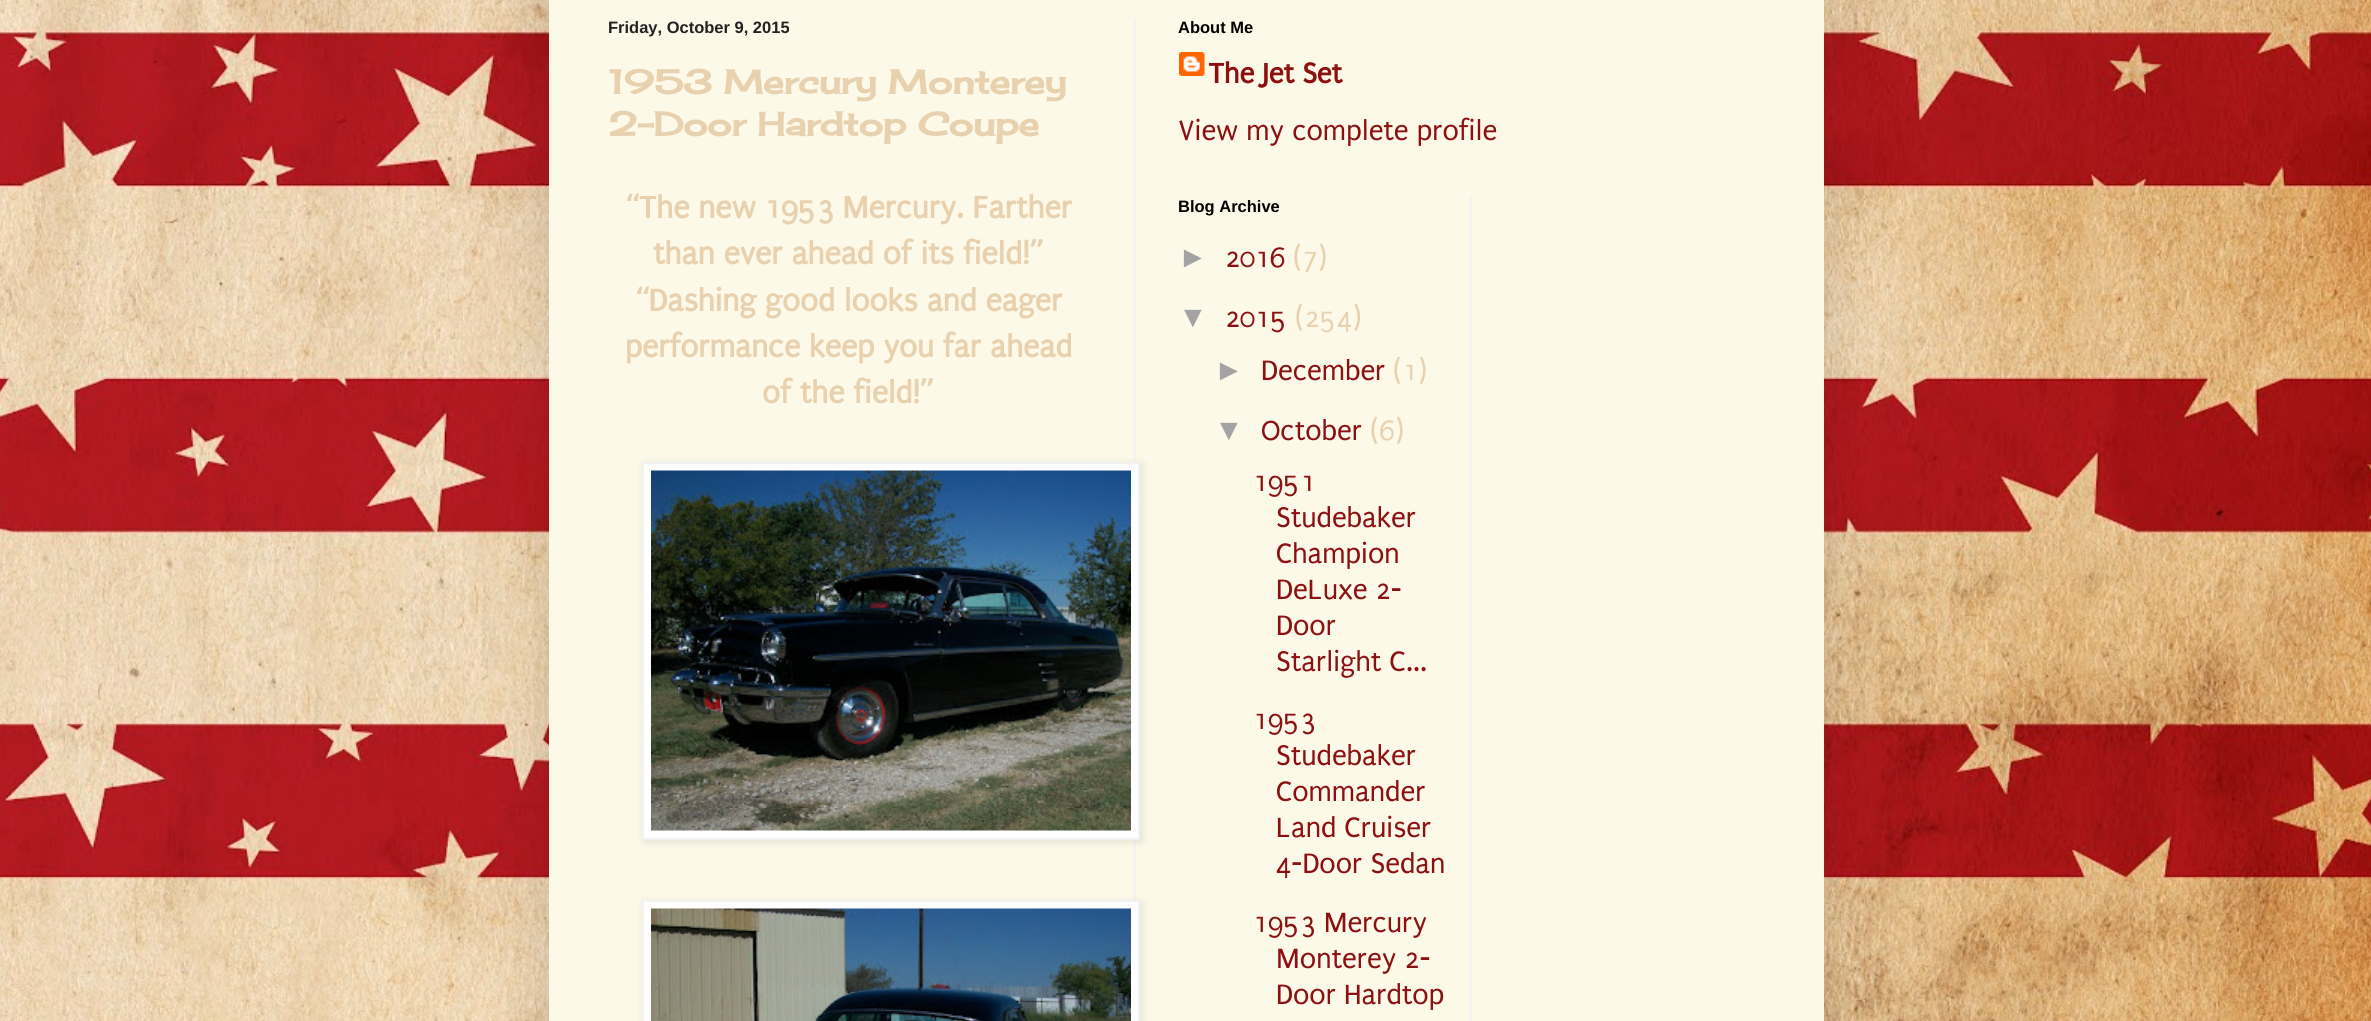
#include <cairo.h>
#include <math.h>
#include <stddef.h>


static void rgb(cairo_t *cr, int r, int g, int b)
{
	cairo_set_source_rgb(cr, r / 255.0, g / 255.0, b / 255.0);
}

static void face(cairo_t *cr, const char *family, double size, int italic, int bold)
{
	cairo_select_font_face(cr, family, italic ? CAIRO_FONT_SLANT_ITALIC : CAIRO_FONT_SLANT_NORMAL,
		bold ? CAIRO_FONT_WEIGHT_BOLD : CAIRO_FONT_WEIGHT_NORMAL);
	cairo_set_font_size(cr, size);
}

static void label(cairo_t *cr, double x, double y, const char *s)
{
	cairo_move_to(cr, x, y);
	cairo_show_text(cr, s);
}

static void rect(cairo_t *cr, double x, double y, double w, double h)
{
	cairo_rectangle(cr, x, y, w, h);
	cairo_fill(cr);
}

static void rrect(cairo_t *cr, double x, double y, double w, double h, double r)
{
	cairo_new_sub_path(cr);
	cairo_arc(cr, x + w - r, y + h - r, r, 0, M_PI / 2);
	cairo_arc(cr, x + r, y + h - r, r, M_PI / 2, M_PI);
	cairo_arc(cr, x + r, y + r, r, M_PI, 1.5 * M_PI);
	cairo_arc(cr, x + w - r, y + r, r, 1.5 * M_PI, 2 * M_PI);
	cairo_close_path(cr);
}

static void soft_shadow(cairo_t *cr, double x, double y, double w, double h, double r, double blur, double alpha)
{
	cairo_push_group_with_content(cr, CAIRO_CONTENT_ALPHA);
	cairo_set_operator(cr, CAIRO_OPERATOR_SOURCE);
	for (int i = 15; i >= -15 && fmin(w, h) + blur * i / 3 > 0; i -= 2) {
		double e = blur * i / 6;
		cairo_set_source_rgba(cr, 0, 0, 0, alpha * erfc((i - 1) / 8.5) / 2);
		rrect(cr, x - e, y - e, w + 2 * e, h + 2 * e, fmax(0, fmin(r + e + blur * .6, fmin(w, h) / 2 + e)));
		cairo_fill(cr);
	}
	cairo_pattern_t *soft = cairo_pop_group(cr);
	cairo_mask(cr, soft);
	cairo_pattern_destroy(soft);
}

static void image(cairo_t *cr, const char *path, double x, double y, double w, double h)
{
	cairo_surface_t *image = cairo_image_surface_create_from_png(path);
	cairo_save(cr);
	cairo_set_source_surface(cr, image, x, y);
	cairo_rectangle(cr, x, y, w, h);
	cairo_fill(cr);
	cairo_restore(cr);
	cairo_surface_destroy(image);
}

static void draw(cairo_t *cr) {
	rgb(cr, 255, 255, 255);
	cairo_paint(cr);
	image(cr, "image0.png", 0, 0, 2371, 1021);
	rgb(cr, 0, 0, 0);
	soft_shadow(cr, 549, -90, 1275, 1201, 0, 30, 0.15);
	rgb(cr, 252, 249, 233);
	rect(cr, 549, 0, 1275, 1021);
	rgb(cr, 242, 242, 242);
	rect(cr, 1134, 18, 2, 882);
	face(cr, "Liberation Sans", 16.5, 0, 1);
	rgb(cr, 34, 34, 34);
	label(cr, 608, 33, "Friday, October 9, 2015");
	face(cr, "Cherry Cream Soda", 33, 0, 1);
	rgb(cr, 232, 209, 175);
	label(cr, 608, 94, "1953 Mercury Monterey");
	label(cr, 608, 136, "2-Door Hardtop Coupe");
	face(cr, "Puritan", 33, 0, 1);
	label(cr, 624, 218, "“The new 1953 Mercury. Farther");
	label(cr, 653, 264, "than ever ahead of its field!”");
	label(cr, 634, 311, "“Dashing good looks and eager");
	label(cr, 625, 357, "performance keep you far ahead");
	label(cr, 762, 403, "of the field!”");
	rgb(cr, 0, 0, 0);
	soft_shadow(cr, 644, 464, 498, 378, 0, 4, 0.1);
	rgb(cr, 255, 255, 255);
	cairo_rectangle(cr, 643, 463, 496, 376);
	cairo_fill_preserve(cr);
	rgb(cr, 242, 242, 242);
	cairo_stroke(cr);
	image(cr, "image1.png", 651, 470, 480, 361);
	rgb(cr, 0, 0, 0);
	soft_shadow(cr, 644, 902, 498, 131, 0, 4, 0.1);
	rgb(cr, 255, 255, 255);
	cairo_rectangle(cr, 643, 901, 496, 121);
	cairo_fill_preserve(cr);
	rgb(cr, 242, 242, 242);
	cairo_stroke(cr);
	image(cr, "image2.png", 651, 908, 480, 113);
	face(cr, "Liberation Sans", 16.5, 0, 1);
	rgb(cr, 0, 0, 0);
	label(cr, 1178, 33, "About Me");
	image(cr, "image3.png", 1179, 52, 26, 24);
	face(cr, "Puritan", 30, 0, 1);
	rgb(cr, 140, 16, 16);
	label(cr, 1208, 83, "The Jet Set");
	face(cr, "Puritan", 30, 0, 0);
	label(cr, 1178, 140, "View my complete profile");
	face(cr, "Liberation Sans", 16.5, 0, 1);
	rgb(cr, 0, 0, 0);
	label(cr, 1178, 212, "Blog Archive");
	face(cr, "Liberation Sans", 30, 0, 0);
	rgb(cr, 163, 163, 163);
	label(cr, 1178, 267, "►");
	face(cr, "Puritan", 30, 0, 0);
	rgb(cr, 140, 16, 16);
	label(cr, 1225, 267, "2016");
	rgb(cr, 232, 209, 175);
	label(cr, 1293, 267, "(7)");
	face(cr, "Liberation Sans", 30, 0, 0);
	rgb(cr, 163, 163, 163);
	label(cr, 1178, 327, "▼");
	face(cr, "Puritan", 30, 0, 0);
	rgb(cr, 140, 16, 16);
	label(cr, 1225, 327, "2015");
	rgb(cr, 232, 209, 175);
	label(cr, 1295, 327, "(254)");
	face(cr, "Liberation Sans", 30, 0, 0);
	rgb(cr, 163, 163, 163);
	label(cr, 1214, 380, "►");
	face(cr, "Puritan", 30, 0, 0);
	rgb(cr, 140, 16, 16);
	label(cr, 1261, 380, "December");
	rgb(cr, 232, 209, 175);
	label(cr, 1393, 380, "(1)");
	face(cr, "Liberation Sans", 30, 0, 0);
	rgb(cr, 163, 163, 163);
	label(cr, 1214, 440, "▼");
	face(cr, "Puritan", 30, 0, 0);
	rgb(cr, 140, 16, 16);
	label(cr, 1261, 440, "October");
	rgb(cr, 232, 209, 175);
	label(cr, 1370, 440, "(6)");
	rgb(cr, 140, 16, 16);
	label(cr, 1253, 491, "1951");
	label(cr, 1276, 527, "Studebaker");
	label(cr, 1276, 563, "Champion");
	label(cr, 1276, 599, "DeLuxe 2-");
	label(cr, 1276, 635, "Door");
	label(cr, 1276, 671, "Starlight C...");
	label(cr, 1253, 729, "1953");
	label(cr, 1276, 765, "Studebaker");
	label(cr, 1276, 801, "Commander");
	label(cr, 1276, 837, "Land Cruiser");
	label(cr, 1276, 873, "4-Door Sedan");
	label(cr, 1253, 932, "1953 Mercury");
	label(cr, 1276, 968, "Monterey 2-");
	label(cr, 1276, 1004, "Door Hardtop");
	rgb(cr, 242, 242, 242);
	rect(cr, 1470, 197, 2, 824);
}

int main(void) {
	cairo_surface_t *surface = cairo_image_surface_create(CAIRO_FORMAT_RGB24, 2371, 1021);
	cairo_t *cr = cairo_create(surface);
	cairo_font_options_t *options = cairo_font_options_create();
	cairo_font_options_set_hint_metrics(options, CAIRO_HINT_METRICS_OFF);
	cairo_font_options_set_hint_style(options, CAIRO_HINT_STYLE_NONE);
	cairo_set_font_options(cr, options);
	cairo_set_miter_limit(cr, 4);
	draw(cr);
	cairo_surface_write_to_png(surface, "render.png");
	cairo_font_options_destroy(options);
	cairo_destroy(cr);
	cairo_surface_destroy(surface);
	return 0;
}
